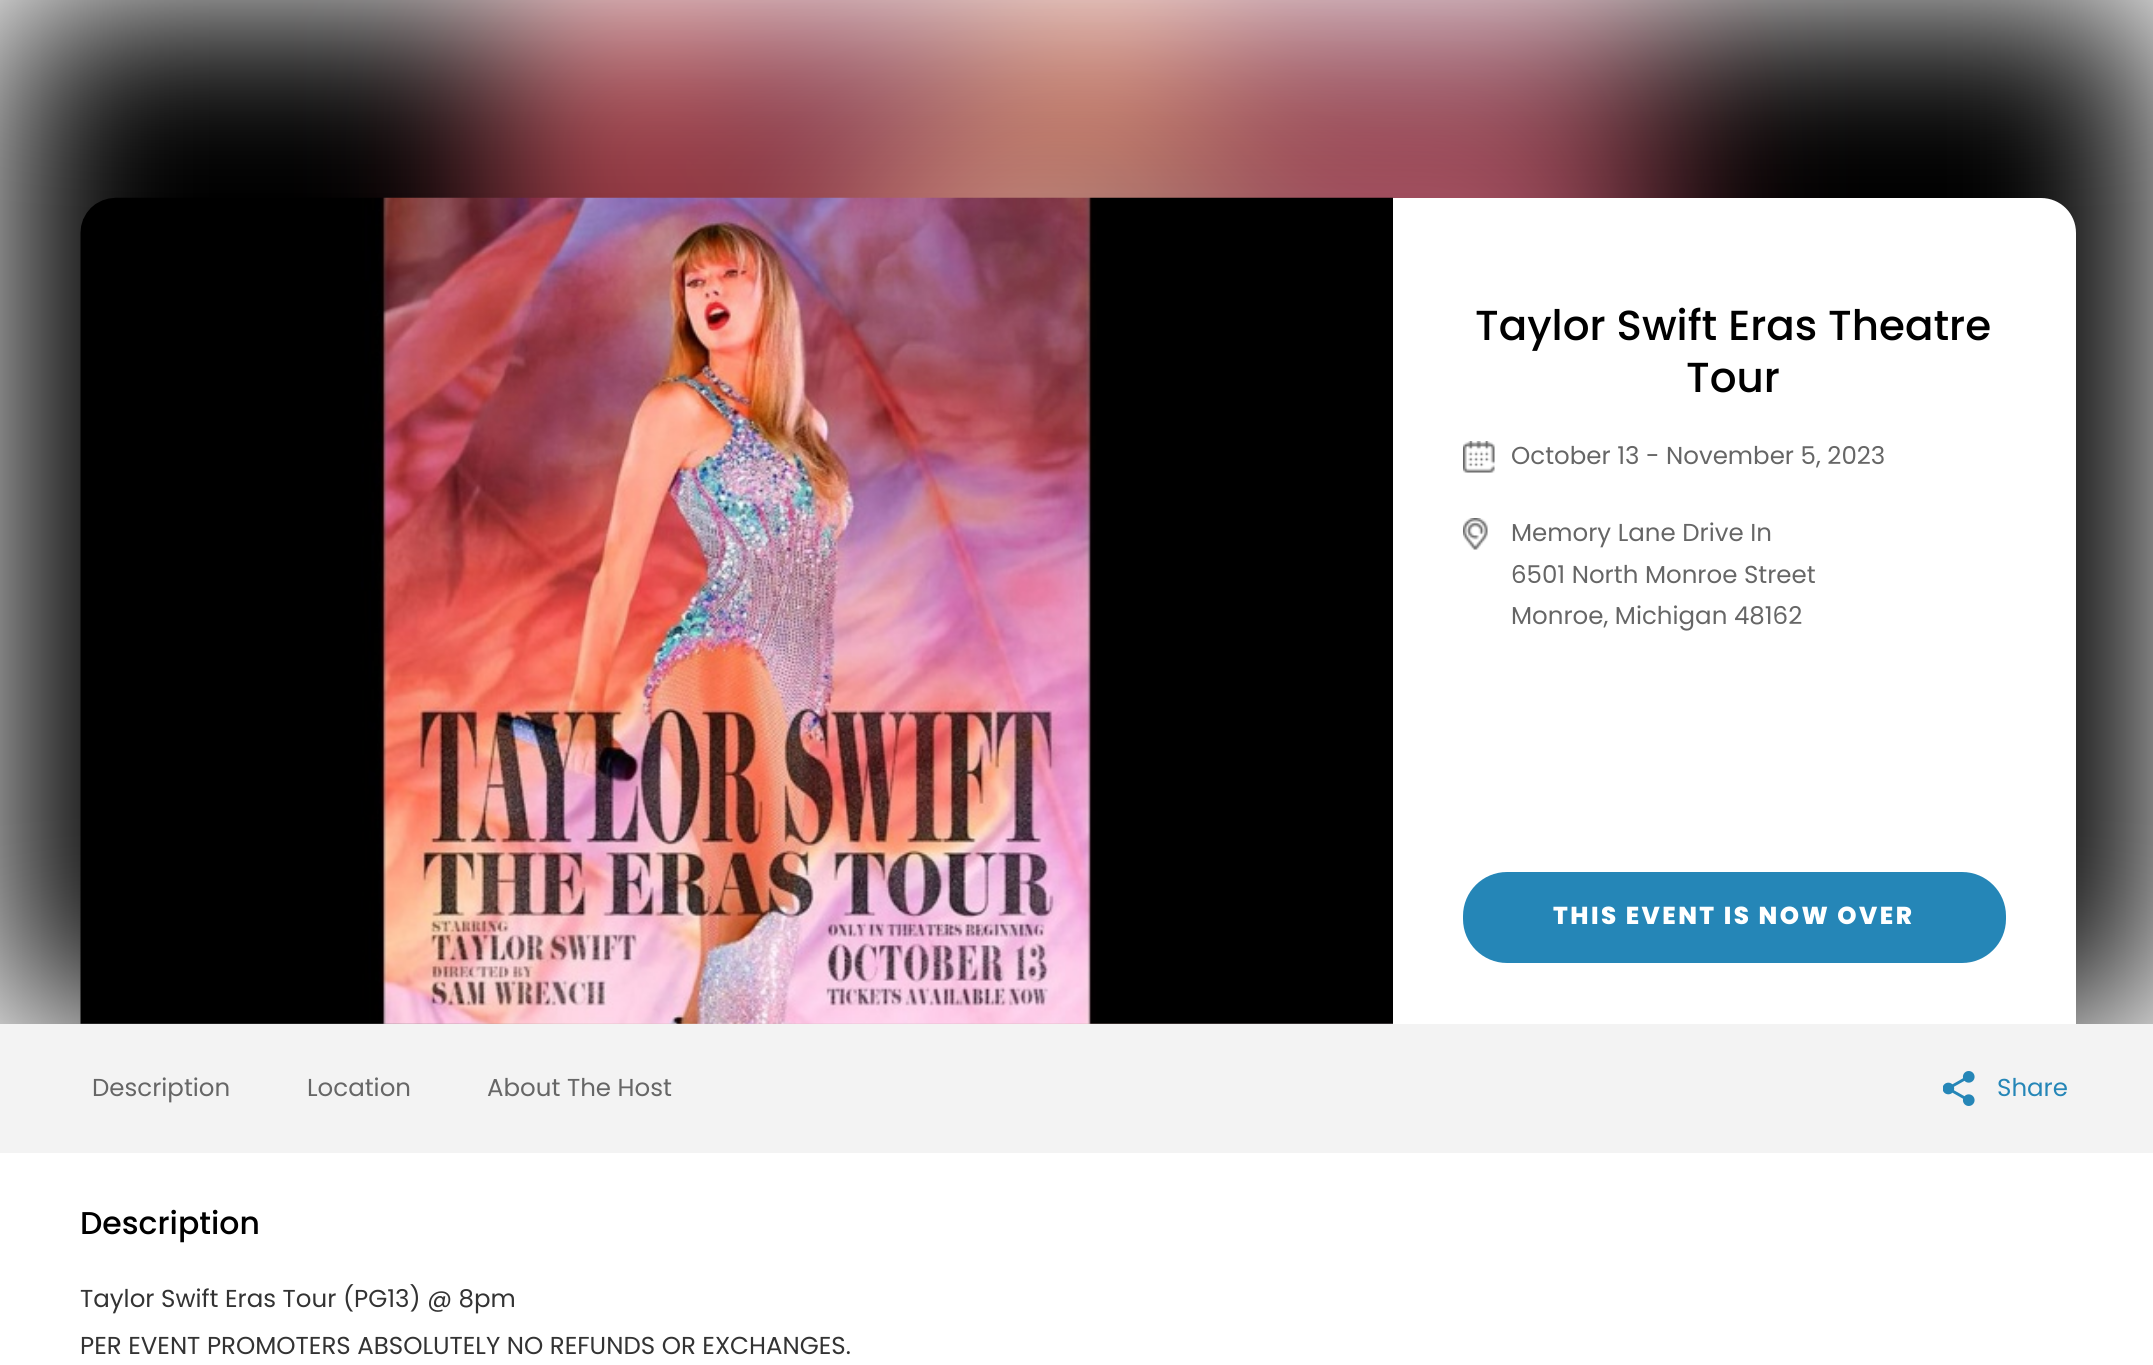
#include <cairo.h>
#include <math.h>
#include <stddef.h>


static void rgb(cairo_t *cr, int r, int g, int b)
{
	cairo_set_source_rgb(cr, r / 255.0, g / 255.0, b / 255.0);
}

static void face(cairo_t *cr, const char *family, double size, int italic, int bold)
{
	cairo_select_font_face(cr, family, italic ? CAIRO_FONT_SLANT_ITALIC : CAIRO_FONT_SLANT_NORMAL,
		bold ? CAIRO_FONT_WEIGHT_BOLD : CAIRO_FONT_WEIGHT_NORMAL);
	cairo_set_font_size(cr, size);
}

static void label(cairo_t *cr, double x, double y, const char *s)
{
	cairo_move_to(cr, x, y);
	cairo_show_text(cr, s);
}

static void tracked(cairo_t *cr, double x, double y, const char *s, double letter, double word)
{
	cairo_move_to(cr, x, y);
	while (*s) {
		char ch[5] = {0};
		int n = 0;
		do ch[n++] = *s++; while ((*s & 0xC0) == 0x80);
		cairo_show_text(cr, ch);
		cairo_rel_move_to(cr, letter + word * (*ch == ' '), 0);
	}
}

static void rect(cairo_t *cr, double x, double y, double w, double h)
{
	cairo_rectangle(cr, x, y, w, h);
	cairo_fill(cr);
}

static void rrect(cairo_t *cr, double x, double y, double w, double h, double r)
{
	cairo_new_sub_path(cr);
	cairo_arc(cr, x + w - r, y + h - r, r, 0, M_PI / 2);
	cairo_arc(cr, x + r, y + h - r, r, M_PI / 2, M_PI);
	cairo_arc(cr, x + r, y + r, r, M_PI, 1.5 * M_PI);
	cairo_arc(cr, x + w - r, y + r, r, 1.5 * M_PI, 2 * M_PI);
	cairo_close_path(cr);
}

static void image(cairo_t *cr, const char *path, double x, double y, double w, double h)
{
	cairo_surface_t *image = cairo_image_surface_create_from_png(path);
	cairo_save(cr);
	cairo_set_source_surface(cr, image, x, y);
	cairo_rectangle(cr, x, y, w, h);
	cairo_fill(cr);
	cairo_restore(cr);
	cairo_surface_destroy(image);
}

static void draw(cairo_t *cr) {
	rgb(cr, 255, 255, 255);
	cairo_paint(cr);
	image(cr, "image0.png", 0, 0, 2153, 1024);
	image(cr, "image1.png", 80, 197, 1313, 827);
	rgb(cr, 255, 255, 255);
	cairo_new_path(cr);
	cairo_move_to(cr, 1393, 198);
	cairo_line_to(cr, 2041, 198);
	cairo_curve_to(cr, 2060.5, 198, 2076, 213.5, 2076, 233);
	cairo_line_to(cr, 2076, 1024);
	cairo_line_to(cr, 1393, 1024);
	cairo_close_path(cr);
	cairo_fill(cr);
	face(cr, "Poppins Medium", 42, 0, 0);
	rgb(cr, 0, 0, 0);
	label(cr, 1475, 340, "Taylor Swift Eras Theatre");
	label(cr, 1686, 392, "Tour");
	image(cr, "image2.png", 1463, 441, 32, 32);
	face(cr, "Poppins", 24.5, 0, 0);
	rgb(cr, 102, 102, 102);
	label(cr, 1511, 464, "October 13 - November 5, 2023");
	image(cr, "image3.png", 1463, 518, 25, 32);
	label(cr, 1511, 541, "Memory Lane Drive In");
	label(cr, 1511, 583, "6501 North Monroe Street");
	label(cr, 1511, 624, "Monroe, Michigan 48162");
	rgb(cr, 37, 134, 183);
	rrect(cr, 1463, 872, 543, 91, 44);
	cairo_fill(cr);
	face(cr, "Poppins ExtraBold", 24.5, 0, 0);
	rgb(cr, 255, 255, 255);
	tracked(cr, 1553, 924, "THIS EVENT IS NOW OVER", 2.45, 0);
	rgb(cr, 243, 243, 243);
	rect(cr, 0, 1024, 2153, 129);
	face(cr, "Poppins", 24.5, 0, 0);
	rgb(cr, 102, 102, 102);
	label(cr, 92, 1096, "Description");
	label(cr, 307, 1096, "Location");
	label(cr, 487, 1096, "About The Host");
	image(cr, "image4.png", 1943, 1071, 32, 35);
	rgb(cr, 37, 134, 183);
	label(cr, 1997, 1096, "Share");
	face(cr, "Poppins Medium", 31.5, 0, 0);
	rgb(cr, 0, 0, 0);
	label(cr, 80, 1234, "Description");
	face(cr, "Poppins", 24.5, 0, 0);
	rgb(cr, 51, 51, 51);
	label(cr, 80, 1307, "Taylor Swift Eras Tour (PG13) @ 8pm");
	label(cr, 80, 1354, "PER EVENT PROMOTERS ABSOLUTELY NO REFUNDS OR EXCHANGES.");
}

int main(void) {
	cairo_surface_t *surface = cairo_image_surface_create(CAIRO_FORMAT_RGB24, 2153, 1365);
	cairo_t *cr = cairo_create(surface);
	cairo_font_options_t *options = cairo_font_options_create();
	cairo_font_options_set_hint_metrics(options, CAIRO_HINT_METRICS_OFF);
	cairo_font_options_set_hint_style(options, CAIRO_HINT_STYLE_NONE);
	cairo_set_font_options(cr, options);
	cairo_set_miter_limit(cr, 4);
	draw(cr);
	cairo_surface_write_to_png(surface, "render.png");
	cairo_font_options_destroy(options);
	cairo_destroy(cr);
	cairo_surface_destroy(surface);
	return 0;
}
